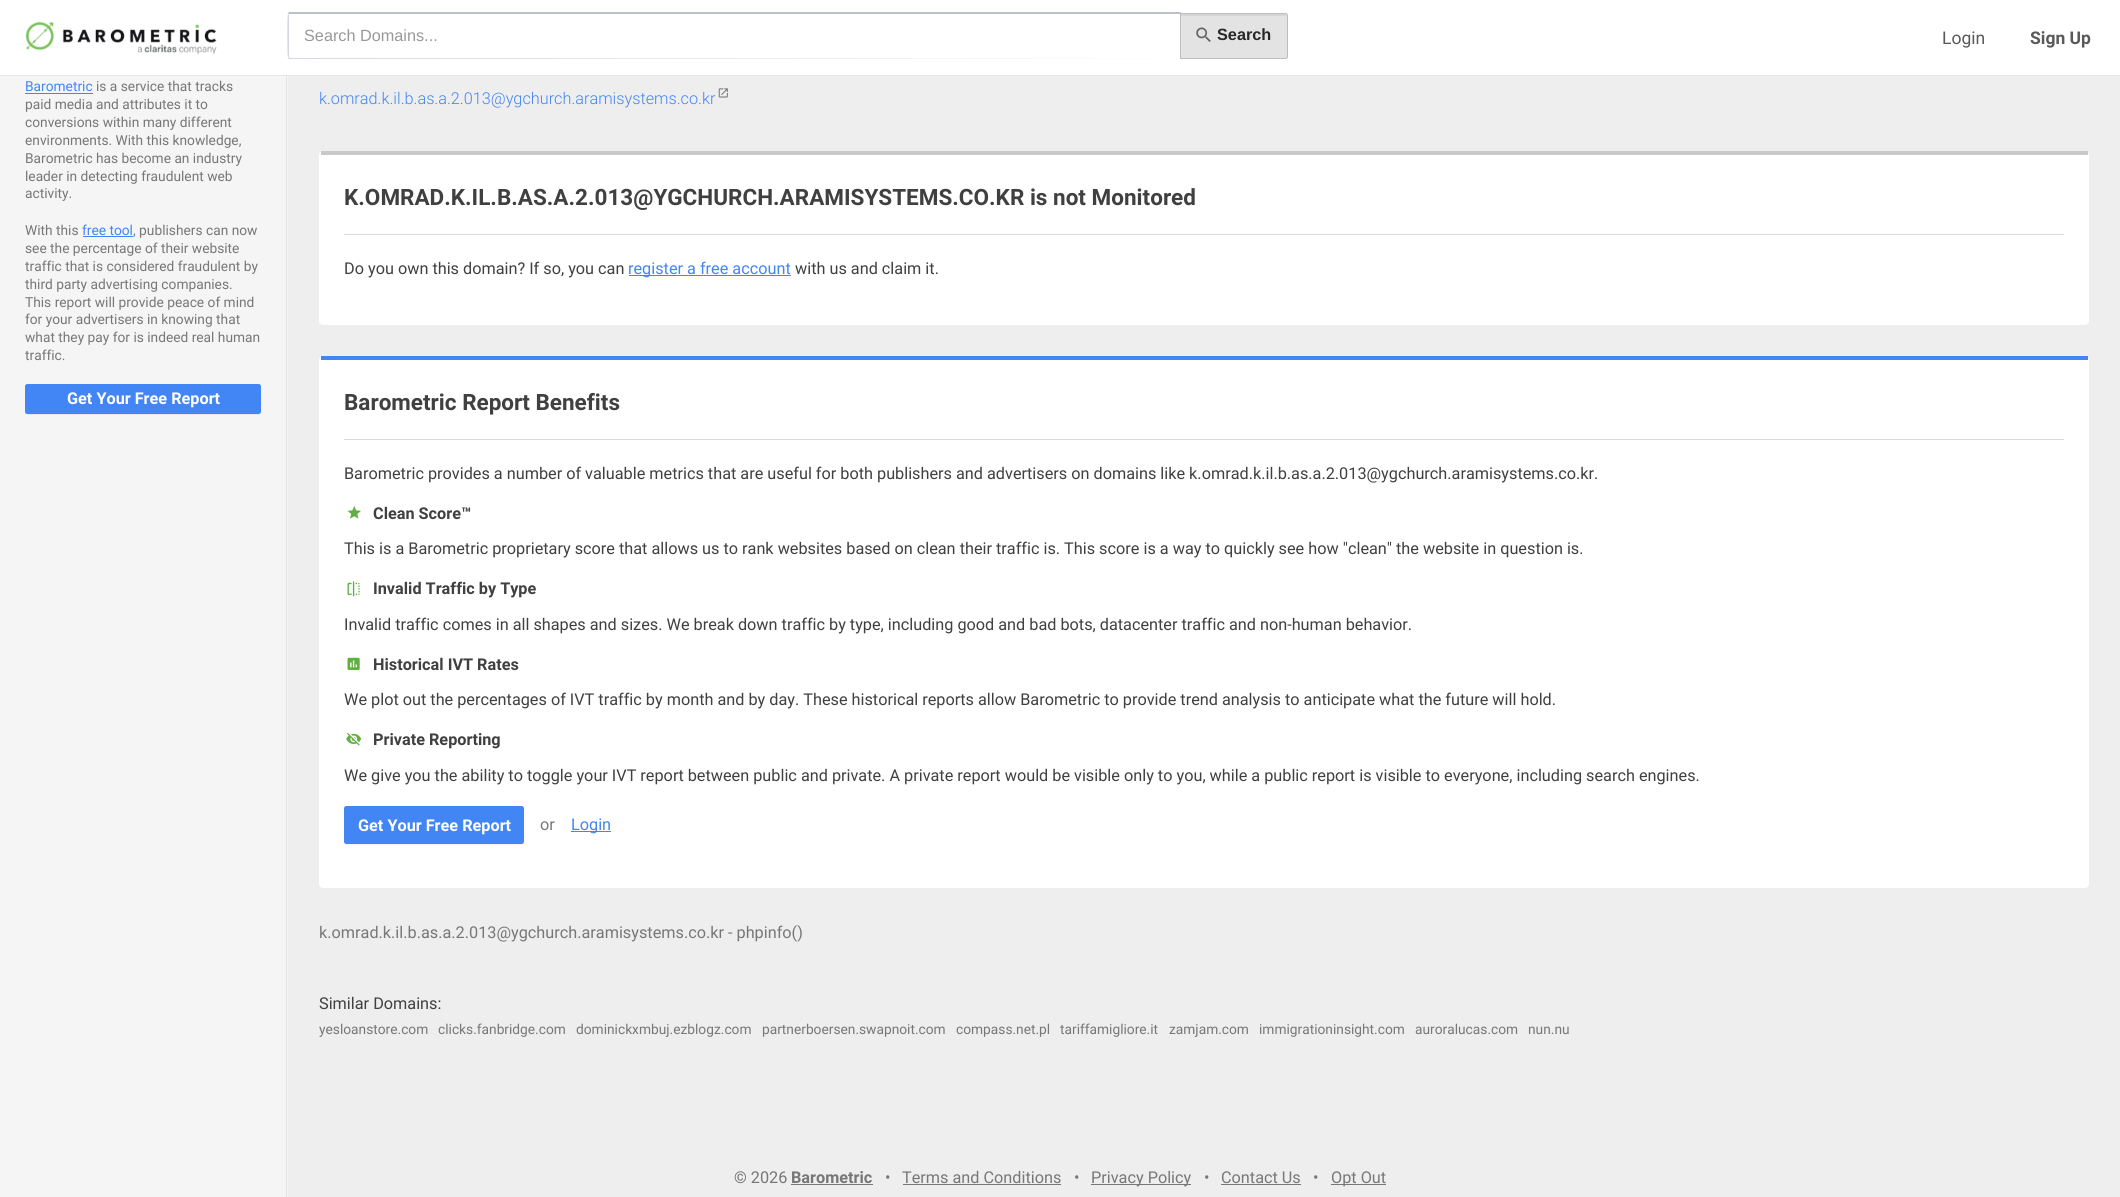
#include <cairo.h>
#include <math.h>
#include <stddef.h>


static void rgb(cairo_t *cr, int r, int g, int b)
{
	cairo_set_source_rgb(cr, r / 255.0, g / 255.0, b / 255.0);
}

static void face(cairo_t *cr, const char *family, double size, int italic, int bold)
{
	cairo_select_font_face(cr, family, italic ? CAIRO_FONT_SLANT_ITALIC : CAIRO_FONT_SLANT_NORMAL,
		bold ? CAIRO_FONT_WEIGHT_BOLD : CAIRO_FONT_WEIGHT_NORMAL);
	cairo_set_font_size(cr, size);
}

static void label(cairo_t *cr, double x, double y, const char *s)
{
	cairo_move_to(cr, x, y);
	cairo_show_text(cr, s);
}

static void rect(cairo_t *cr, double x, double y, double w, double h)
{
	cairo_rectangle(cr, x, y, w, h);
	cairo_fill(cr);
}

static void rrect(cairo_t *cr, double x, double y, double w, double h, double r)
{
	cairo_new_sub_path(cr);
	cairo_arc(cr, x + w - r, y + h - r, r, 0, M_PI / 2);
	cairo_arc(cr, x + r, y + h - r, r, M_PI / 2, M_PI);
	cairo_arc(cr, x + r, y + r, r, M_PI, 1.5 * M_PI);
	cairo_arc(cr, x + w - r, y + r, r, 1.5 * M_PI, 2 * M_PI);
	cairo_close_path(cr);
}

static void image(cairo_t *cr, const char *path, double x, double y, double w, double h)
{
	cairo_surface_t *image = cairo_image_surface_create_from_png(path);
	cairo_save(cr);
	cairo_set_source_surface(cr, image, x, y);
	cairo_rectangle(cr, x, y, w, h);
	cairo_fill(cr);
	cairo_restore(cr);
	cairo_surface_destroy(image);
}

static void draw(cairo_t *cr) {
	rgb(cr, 238, 238, 238);
	cairo_paint(cr);
	rgb(cr, 255, 255, 255);
	rect(cr, 0, 0, 2120, 75);
	rgb(cr, 230, 230, 230);
	rect(cr, 0, 75, 2120, 1);
	image(cr, "image0.png", 25, 21, 192, 34);
	rgb(cr, 189, 192, 199);
	cairo_new_path(cr);
	cairo_move_to(cr, 290, 14);
	cairo_line_to(cr, 289, 14);
	cairo_line_to(cr, 288, 13);
	cairo_line_to(cr, 289, 12);
	cairo_line_to(cr, 1181, 12);
	cairo_line_to(cr, 1180, 14);
	cairo_close_path(cr);
	cairo_fill(cr);
	rgb(cr, 213, 216, 222);
	cairo_new_path(cr);
	cairo_move_to(cr, 289, 59);
	cairo_line_to(cr, 288, 58);
	cairo_line_to(cr, 289, 57);
	cairo_line_to(cr, 290, 58);
	cairo_line_to(cr, 1180, 58);
	cairo_line_to(cr, 1181, 58);
	cairo_close_path(cr);
	cairo_fill(cr);
	cairo_new_path(cr);
	cairo_move_to(cr, 288, 58);
	cairo_curve_to(cr, 287, 56, 287, 15, 288, 13);
	cairo_line_to(cr, 289, 14);
	cairo_line_to(cr, 289, 57);
	cairo_close_path(cr);
	cairo_fill(cr);
	face(cr, "Liberation Sans", 16.25, 0, 0);
	rgb(cr, 153, 153, 153);
	label(cr, 304, 41, "Search Domains...");
	rgb(cr, 227, 227, 227);
	cairo_new_path(cr);
	cairo_move_to(cr, 1180, 13);
	cairo_line_to(cr, 1285.5, 13);
	cairo_curve_to(cr, 1287, 13, 1288, 14, 1288, 15.5);
	cairo_line_to(cr, 1288, 56.5);
	cairo_curve_to(cr, 1288, 58, 1287, 59, 1285.5, 59);
	cairo_line_to(cr, 1180, 59);
	cairo_close_path(cr);
	cairo_fill(cr);
	rgb(cr, 213, 213, 213);
	cairo_new_path(cr);
	cairo_move_to(cr, 1181, 16);
	cairo_line_to(cr, 1285, 16);
	cairo_curve_to(cr, 1286, 16, 1286, 17, 1286, 18);
	cairo_line_to(cr, 1286, 15);
	cairo_curve_to(cr, 1286, 14, 1286, 14, 1285, 14);
	cairo_line_to(cr, 1181, 14);
	cairo_close_path(cr);
	cairo_fill(cr);
	cairo_new_path(cr);
	cairo_move_to(cr, 1180.5, 13.5);
	cairo_line_to(cr, 1285.5, 13.5);
	cairo_curve_to(cr, 1286.5, 13.5, 1287.5, 14.5, 1287.5, 15.5);
	cairo_line_to(cr, 1287.5, 56.5);
	cairo_curve_to(cr, 1287.5, 57.5, 1286.5, 58.5, 1285.5, 58.5);
	cairo_line_to(cr, 1180.5, 58.5);
	cairo_close_path(cr);
	rgb(cr, 189, 189, 189);
	cairo_set_line_width(cr, 1);
	cairo_stroke(cr);
	image(cr, "image1.png", 1196, 27, 15, 15);
	face(cr, "Liberation Sans", 16.25, 0, 1);
	rgb(cr, 39, 39, 39);
	label(cr, 1217, 40, "Search");
	face(cr, "Roboto", 17.5, 0, 0);
	rgb(cr, 90, 90, 90);
	label(cr, 1942, 44, "Login");
	face(cr, "Roboto", 17.5, 0, 1);
	label(cr, 2030, 44, "Sign Up");
	rgb(cr, 245, 245, 245);
	rect(cr, 0, 76, 288, 1121);
	rgb(cr, 227, 227, 227);
	rect(cr, 286, 76, 1, 1121);
	face(cr, "Roboto", 13.75, 0, 0);
	rgb(cr, 66, 133, 244);
	label(cr, 25, 91, "Barometric");
	rect(cr, 25, 93, 68, 1);
	rgb(cr, 119, 119, 119);
	label(cr, 96, 91, "is a service that tracks");
	label(cr, 25, 109, "paid media and attributes it to");
	label(cr, 25, 127, "conversions within many different");
	label(cr, 25, 145, "environments. With this knowledge,");
	label(cr, 25, 163, "Barometric has become an industry");
	label(cr, 25, 181, "leader in detecting fraudulent web");
	label(cr, 25, 198, "activity.");
	label(cr, 25, 235, "With this");
	rgb(cr, 66, 133, 244);
	label(cr, 82, 235, "free tool");
	rect(cr, 83, 236, 50, 1);
	rgb(cr, 119, 119, 119);
	label(cr, 133, 235, ", publishers can now");
	label(cr, 25, 253, "see the percentage of their website");
	label(cr, 25, 271, "traffic that is considered fraudulent by");
	label(cr, 25, 289, "third party advertising companies.");
	label(cr, 25, 307, "This report will provide peace of mind");
	label(cr, 25, 324, "for your advertisers in knowing that");
	label(cr, 25, 342, "what they pay for is indeed real human");
	label(cr, 25, 360, "traffic.");
	rgb(cr, 233, 233, 233);
	cairo_new_path(cr);
	cairo_move_to(cr, 25, 411);
	cairo_line_to(cr, 25, 412);
	cairo_curve_to(cr, 25, 414, 26, 415, 28, 415);
	cairo_line_to(cr, 258, 415);
	cairo_curve_to(cr, 260, 415, 261, 414, 261, 412);
	cairo_curve_to(cr, 261, 413, 260, 414, 259, 414);
	cairo_line_to(cr, 28, 414);
	cairo_curve_to(cr, 26, 414, 25, 413, 25, 411);
	cairo_close_path(cr);
	cairo_fill(cr);
	rgb(cr, 66, 133, 244);
	rrect(cr, 25.5, 384.5, 235, 29, 2);
	cairo_fill_preserve(cr);
	cairo_stroke(cr);
	face(cr, "Roboto", 16.25, 0, 1);
	rgb(cr, 255, 255, 255);
	label(cr, 67, 404, "Get Your Free Report");
	face(cr, "Roboto Light", 16.25, 0, 0);
	rgb(cr, 66, 133, 244);
	label(cr, 319, 104, "k.omrad.k.il.b.as.a.2.013@ygchurch.aramisystems.co.kr");
	image(cr, "image2.png", 718, 88, 10, 10);
	rgb(cr, 255, 255, 255);
	rrect(cr, 319, 151, 1770, 174, 4);
	cairo_fill(cr);
	rgb(cr, 201, 201, 201);
	rect(cr, 321, 151, 1767, 4);
	rgb(cr, 217, 217, 217);
	rect(cr, 344, 234, 1720, 1);
	face(cr, "Roboto", 22.5, 0, 1);
	rgb(cr, 64, 64, 64);
	label(cr, 344, 205, "K.OMRAD.K.IL.B.AS.A.2.013@YGCHURCH.ARAMISYSTEMS.CO.KR is not Monitored");
	face(cr, "Roboto", 16.25, 0, 0);
	label(cr, 344, 274, "Do you own this domain? If so, you can");
	rgb(cr, 66, 133, 244);
	rect(cr, 629, 275, 162, 1);
	label(cr, 628, 274, "register a free account");
	rgb(cr, 64, 64, 64);
	label(cr, 795, 274, "with us and claim it.");
	rgb(cr, 255, 255, 255);
	rrect(cr, 319, 356, 1770, 532, 4);
	cairo_fill(cr);
	rgb(cr, 66, 133, 244);
	rect(cr, 321, 356, 1767, 4);
	rgb(cr, 217, 217, 217);
	rect(cr, 344, 439, 1720, 1);
	face(cr, "Roboto", 22.5, 0, 1);
	rgb(cr, 64, 64, 64);
	label(cr, 344, 410, "Barometric Report Benefits");
	face(cr, "Roboto", 16.25, 0, 0);
	label(cr, 344, 479, "Barometric provides a number of valuable metrics that are useful for both publishers and advertisers on domains like k.omrad.k.il.b.as.a.2.013@ygchurch.aramisystems.co.kr.");
	image(cr, "image3.png", 347, 506, 14, 13);
	face(cr, "Roboto", 16.25, 0, 1);
	label(cr, 373, 519, "Clean Score™");
	face(cr, "Roboto", 16.25, 0, 0);
	label(cr, 344, 554, "This is a Barometric proprietary score that allows us to rank websites based on clean their traffic is. This score is a way to quickly see how \"clean\" the website in question is.");
	image(cr, "image4.png", 347, 581, 13, 16);
	face(cr, "Roboto", 16.25, 0, 1);
	label(cr, 373, 594, "Invalid Traffic by Type");
	face(cr, "Roboto", 16.25, 0, 0);
	label(cr, 344, 630, "Invalid traffic comes in all shapes and sizes. We break down traffic by type, including good and bad bots, datacenter traffic and non-human behavior.");
	image(cr, "image5.png", 347, 657, 13, 13);
	face(cr, "Roboto", 16.25, 0, 1);
	label(cr, 373, 670, "Historical IVT Rates");
	face(cr, "Roboto", 16.25, 0, 0);
	label(cr, 344, 705, "We plot out the percentages of IVT traffic by month and by day. These historical reports allow Barometric to provide trend analysis to anticipate what the future will hold.");
	image(cr, "image6.png", 346, 732, 16, 14);
	face(cr, "Roboto", 16.25, 0, 1);
	label(cr, 373, 745, "Private Reporting");
	face(cr, "Roboto", 16.25, 0, 0);
	label(cr, 344, 781, "We give you the ability to toggle your IVT report between public and private. A private report would be visible only to you, while a public report is visible to everyone, including search engines.");
	rgb(cr, 242, 242, 242);
	cairo_new_path(cr);
	cairo_move_to(cr, 344, 842);
	cairo_curve_to(cr, 344, 844, 345, 845, 346, 845);
	cairo_line_to(cr, 522, 845);
	cairo_curve_to(cr, 523, 845, 524, 844, 524, 842);
	cairo_line_to(cr, 524, 809);
	cairo_line_to(cr, 524, 841);
	cairo_curve_to(cr, 524, 843, 523, 844, 521, 844);
	cairo_line_to(cr, 346, 844);
	cairo_curve_to(cr, 345, 844, 344, 843, 344, 842);
	cairo_close_path(cr);
	cairo_fill(cr);
	rgb(cr, 66, 133, 244);
	rrect(cr, 344.5, 806.5, 179, 37, 2);
	cairo_fill_preserve(cr);
	cairo_stroke(cr);
	face(cr, "Roboto", 16.25, 0, 1);
	rgb(cr, 255, 255, 255);
	label(cr, 358, 831, "Get Your Free Report");
	face(cr, "Roboto", 16.25, 0, 0);
	rgb(cr, 119, 119, 119);
	label(cr, 540, 830, "or");
	rgb(cr, 66, 133, 244);
	rect(cr, 571, 831, 40, 1);
	label(cr, 571, 830, "Login");
	rgb(cr, 119, 119, 119);
	label(cr, 319, 938, "k.omrad.k.il.b.as.a.2.013@ygchurch.aramisystems.co.kr - phpinfo()");
	rgb(cr, 64, 64, 64);
	label(cr, 319, 1009, "Similar Domains:");
	face(cr, "Roboto", 13.75, 0, 0);
	rgb(cr, 119, 119, 119);
	label(cr, 319, 1034, "yesloanstore.com");
	label(cr, 438, 1034, "clicks.fanbridge.com");
	label(cr, 576, 1034, "dominickxmbuj.ezblogz.com");
	label(cr, 762, 1034, "partnerboersen.swapnoit.com");
	label(cr, 956, 1034, "compass.net.pl");
	label(cr, 1060, 1034, "tariffamigliore.it");
	label(cr, 1169, 1034, "zamjam.com");
	label(cr, 1259, 1034, "immigrationinsight.com");
	label(cr, 1415, 1034, "auroralucas.com");
	label(cr, 1528, 1034, "nun.nu");
	face(cr, "Roboto", 16.25, 0, 0);
	label(cr, 734, 1183, "© 2026");
	face(cr, "Roboto", 16.25, 0, 1);
	label(cr, 791, 1183, "Barometric");
	rect(cr, 791, 1184, 82, 1);
	face(cr, "Roboto", 16.25, 0, 0);
	label(cr, 885, 1183, "•");
	label(cr, 902, 1183, "Terms and Conditions");
	rect(cr, 903, 1184, 158, 1);
	label(cr, 1074, 1183, "•");
	rect(cr, 1091, 1184, 100, 1);
	label(cr, 1091, 1183, "Privacy Policy");
	label(cr, 1204, 1183, "•");
	label(cr, 1221, 1183, "Contact Us");
	rect(cr, 1221, 1184, 80, 1);
	label(cr, 1313, 1183, "•");
	rect(cr, 1331, 1184, 55, 1);
	label(cr, 1331, 1183, "Opt Out");
}

int main(void) {
	cairo_surface_t *surface = cairo_image_surface_create(CAIRO_FORMAT_RGB24, 2120, 1197);
	cairo_t *cr = cairo_create(surface);
	cairo_font_options_t *options = cairo_font_options_create();
	cairo_font_options_set_hint_metrics(options, CAIRO_HINT_METRICS_OFF);
	cairo_font_options_set_hint_style(options, CAIRO_HINT_STYLE_NONE);
	cairo_set_font_options(cr, options);
	cairo_set_miter_limit(cr, 4);
	draw(cr);
	cairo_surface_write_to_png(surface, "render.png");
	cairo_font_options_destroy(options);
	cairo_destroy(cr);
	cairo_surface_destroy(surface);
	return 0;
}
